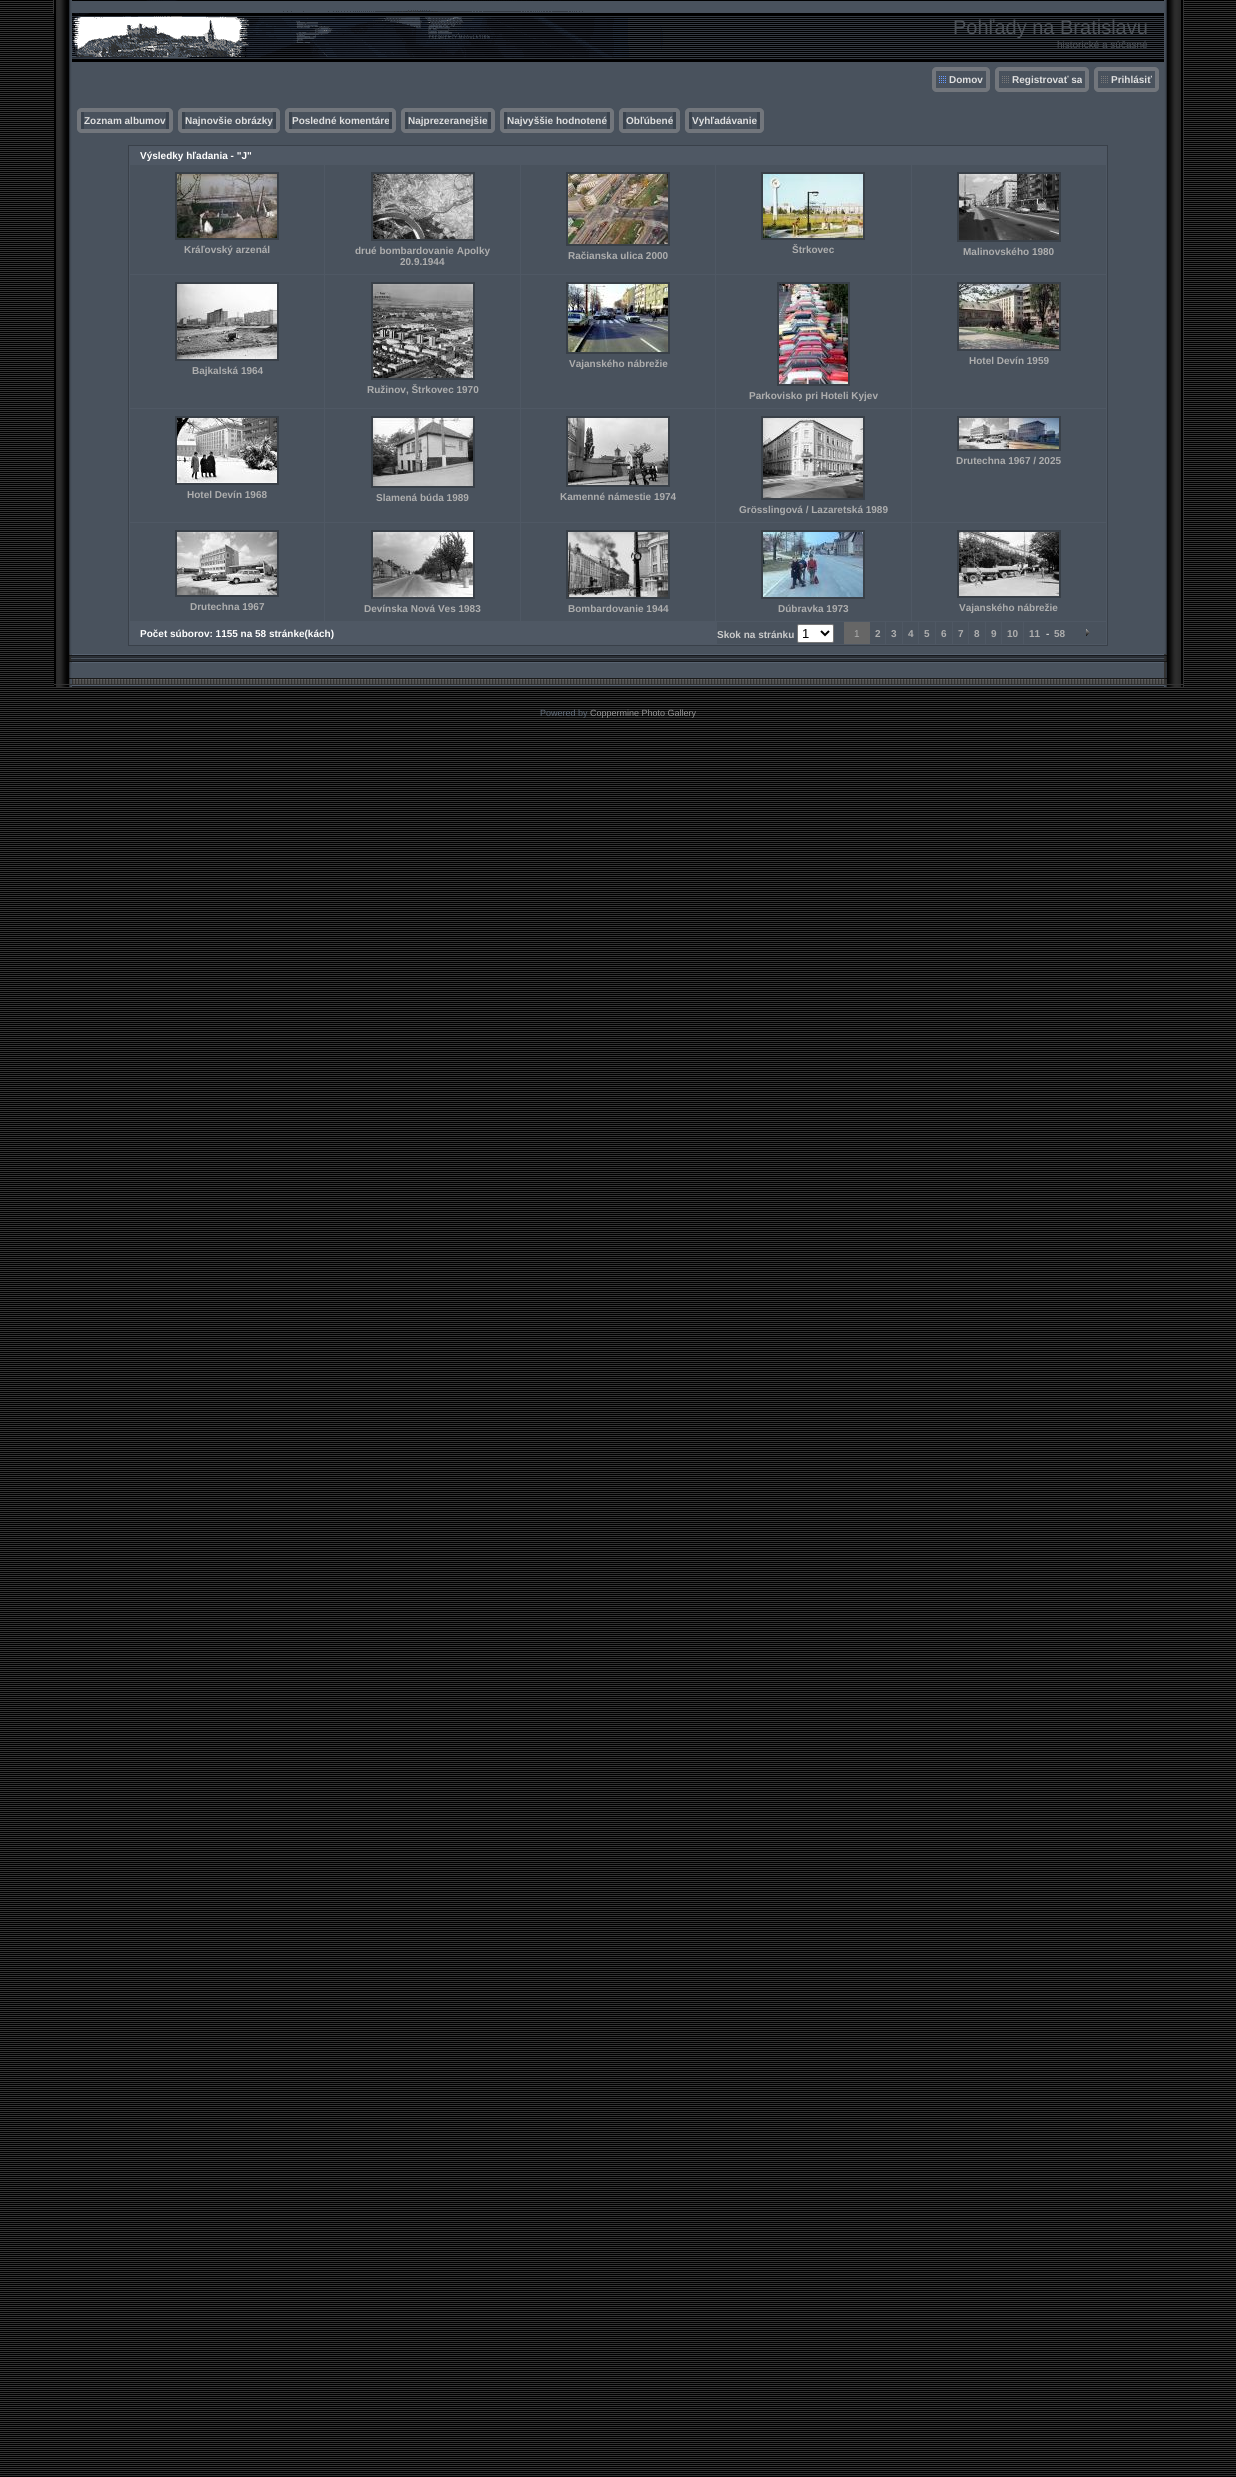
#include <cairo.h>
#include <math.h>
#include <stddef.h>


static void rgb(cairo_t *cr, int r, int g, int b)
{
	cairo_set_source_rgb(cr, r / 255.0, g / 255.0, b / 255.0);
}

static void face(cairo_t *cr, const char *family, double size, int italic, int bold)
{
	cairo_select_font_face(cr, family, italic ? CAIRO_FONT_SLANT_ITALIC : CAIRO_FONT_SLANT_NORMAL,
		bold ? CAIRO_FONT_WEIGHT_BOLD : CAIRO_FONT_WEIGHT_NORMAL);
	cairo_set_font_size(cr, size);
}

static void label(cairo_t *cr, double x, double y, const char *s)
{
	cairo_move_to(cr, x, y);
	cairo_show_text(cr, s);
}

static void rect(cairo_t *cr, double x, double y, double w, double h)
{
	cairo_rectangle(cr, x, y, w, h);
	cairo_fill(cr);
}

static void rrect(cairo_t *cr, double x, double y, double w, double h, double r)
{
	cairo_new_sub_path(cr);
	cairo_arc(cr, x + w - r, y + h - r, r, 0, M_PI / 2);
	cairo_arc(cr, x + r, y + h - r, r, M_PI / 2, M_PI);
	cairo_arc(cr, x + r, y + r, r, M_PI, 1.5 * M_PI);
	cairo_arc(cr, x + w - r, y + r, r, 1.5 * M_PI, 2 * M_PI);
	cairo_close_path(cr);
}

static void image(cairo_t *cr, const char *path, double x, double y, double w, double h)
{
	cairo_surface_t *image = cairo_image_surface_create_from_png(path);
	cairo_save(cr);
	cairo_set_source_surface(cr, image, x, y);
	cairo_rectangle(cr, x, y, w, h);
	cairo_fill(cr);
	cairo_restore(cr);
	cairo_surface_destroy(image);
}

static void draw(cairo_t *cr) {
	rgb(cr, 0, 0, 0);
	cairo_paint(cr);
	image(cr, "image0.png", 0, 1, 1236, 2475);
	rgb(cr, 51, 51, 51);
	rect(cr, 53, 0, 1, 13);
	image(cr, "image1.png", 54, 0, 18, 62);
	image(cr, "image2.png", 72, 1, 1092, 61);
	image(cr, "image3.png", 72, 0, 591, 58);
	face(cr, "Liberation Sans", 20, 0, 0);
	rgb(cr, 76, 81, 87);
	label(cr, 953, 34, "Pohľady na Bratislavu");
	face(cr, "Liberation Sans", 10, 0, 0);
	label(cr, 1057, 48, "historické a súčasné");
	image(cr, "image4.png", 1164, 0, 19, 62);
	rgb(cr, 51, 51, 51);
	rect(cr, 1183, 0, 1, 687);
	image(cr, "image5.png", 54, 62, 18, 592);
	rgb(cr, 73, 82, 93);
	rect(cr, 72, 62, 1092, 592);
	image(cr, "image6.png", 932, 67, 17, 25);
	image(cr, "image7.png", 949, 67, 34, 25);
	face(cr, "Liberation Sans", 10, 0, 1);
	rgb(cr, 223, 223, 223);
	label(cr, 949, 83, "Domov");
	image(cr, "image8.png", 983, 67, 7, 25);
	image(cr, "image9.png", 995, 67, 17, 25);
	image(cr, "image10.png", 1012, 67, 70, 25);
	label(cr, 1012, 83, "Registrovať sa");
	image(cr, "image8.png", 1082, 67, 7, 25);
	image(cr, "image9.png", 1094, 67, 17, 25);
	image(cr, "image11.png", 1111, 67, 41, 25);
	label(cr, 1111, 83, "Prihlásiť");
	image(cr, "image8.png", 1152, 67, 7, 25);
	image(cr, "image12.png", 77, 108, 7, 25);
	image(cr, "image13.png", 84, 108, 82, 25);
	label(cr, 84, 124, "Zoznam albumov");
	image(cr, "image14.png", 166, 108, 7, 25);
	image(cr, "image12.png", 178, 108, 7, 25);
	image(cr, "image15.png", 185, 108, 88, 25);
	label(cr, 185, 124, "Najnovšie obrázky");
	image(cr, "image14.png", 273, 108, 7, 25);
	image(cr, "image12.png", 285, 108, 7, 25);
	image(cr, "image16.png", 292, 108, 97, 25);
	label(cr, 292, 124, "Posledné komentáre");
	image(cr, "image14.png", 389, 108, 7, 25);
	image(cr, "image12.png", 401, 108, 7, 25);
	image(cr, "image17.png", 408, 108, 80, 25);
	label(cr, 408, 124, "Najprezeranejšie");
	image(cr, "image14.png", 488, 108, 7, 25);
	image(cr, "image12.png", 500, 108, 7, 25);
	image(cr, "image18.png", 507, 108, 100, 25);
	label(cr, 507, 124, "Najvyššie hodnotené");
	image(cr, "image14.png", 607, 108, 7, 25);
	image(cr, "image12.png", 619, 108, 7, 25);
	image(cr, "image19.png", 626, 108, 47, 25);
	label(cr, 626, 124, "Obľúbené");
	image(cr, "image14.png", 673, 108, 7, 25);
	image(cr, "image12.png", 685, 108, 7, 25);
	image(cr, "image20.png", 692, 108, 65, 25);
	label(cr, 692, 124, "Vyhľadávanie");
	image(cr, "image14.png", 757, 108, 7, 25);
	rgb(cr, 79, 88, 100);
	cairo_rectangle(cr, 128.5, 145.5, 979, 500);
	cairo_fill_preserve(cr);
	rgb(cr, 57, 64, 73);
	cairo_set_line_width(cr, 1);
	cairo_stroke(cr);
	rgb(cr, 255, 255, 255);
	label(cr, 140, 159, "Výsledky hľadania - \"J\"");
	rgb(cr, 73, 82, 93);
	rect(cr, 130, 165, 194, 109);
	cairo_rectangle(cr, 176, 173, 102, 66);
	rgb(cr, 57, 64, 72);
	cairo_set_line_width(cr, 2);
	cairo_stroke(cr);
	image(cr, "image21.png", 177, 174, 100, 64);
	rgb(cr, 174, 174, 174);
	label(cr, 184, 253, "Kráľovský arzenál");
	rgb(cr, 73, 82, 93);
	rect(cr, 325, 165, 195, 109);
	cairo_rectangle(cr, 372, 173, 102, 67);
	rgb(cr, 57, 64, 72);
	cairo_stroke(cr);
	image(cr, "image22.png", 373, 174, 100, 65);
	rgb(cr, 174, 174, 174);
	label(cr, 355, 254, "drué bombardovanie Apolky");
	label(cr, 400, 265, "20.9.1944");
	rgb(cr, 73, 82, 93);
	rect(cr, 521, 165, 194, 109);
	cairo_rectangle(cr, 567, 173, 102, 72);
	rgb(cr, 57, 64, 72);
	cairo_stroke(cr);
	image(cr, "image23.png", 568, 174, 100, 70);
	rgb(cr, 174, 174, 174);
	label(cr, 568, 259, "Račianska ulica 2000");
	rgb(cr, 73, 82, 93);
	rect(cr, 716, 165, 195, 109);
	cairo_rectangle(cr, 762, 173, 102, 66);
	rgb(cr, 57, 64, 72);
	cairo_stroke(cr);
	image(cr, "image24.png", 763, 174, 100, 64);
	rgb(cr, 174, 174, 174);
	label(cr, 792, 253, "Štrkovec");
	rgb(cr, 73, 82, 93);
	rect(cr, 912, 165, 194, 109);
	cairo_rectangle(cr, 958, 173, 102, 68);
	rgb(cr, 57, 64, 72);
	cairo_stroke(cr);
	image(cr, "image25.png", 959, 174, 100, 66);
	rgb(cr, 174, 174, 174);
	label(cr, 963, 255, "Malinovského 1980");
	rgb(cr, 73, 82, 93);
	rect(cr, 521, 275, 194, 133);
	cairo_rectangle(cr, 567, 283, 102, 70);
	rgb(cr, 57, 64, 72);
	cairo_stroke(cr);
	image(cr, "image26.png", 568, 284, 100, 68);
	rgb(cr, 174, 174, 174);
	label(cr, 569, 367, "Vajanského nábrežie");
	rgb(cr, 73, 82, 93);
	rect(cr, 912, 275, 194, 133);
	cairo_rectangle(cr, 958, 283, 102, 67);
	rgb(cr, 57, 64, 72);
	cairo_stroke(cr);
	image(cr, "image27.png", 959, 284, 100, 65);
	rgb(cr, 174, 174, 174);
	label(cr, 969, 364, "Hotel Devín 1959");
	rgb(cr, 73, 82, 93);
	rect(cr, 130, 275, 194, 133);
	cairo_rectangle(cr, 176, 283, 102, 77);
	rgb(cr, 57, 64, 72);
	cairo_stroke(cr);
	image(cr, "image28.png", 177, 284, 100, 75);
	rgb(cr, 174, 174, 174);
	label(cr, 192, 374, "Bajkalská 1964");
	rgb(cr, 73, 82, 93);
	rect(cr, 325, 275, 195, 133);
	cairo_rectangle(cr, 372, 283, 102, 96);
	rgb(cr, 57, 64, 72);
	cairo_stroke(cr);
	image(cr, "image29.png", 373, 284, 100, 94);
	rgb(cr, 174, 174, 174);
	label(cr, 367, 393, "Ružinov, Štrkovec 1970");
	rgb(cr, 73, 82, 93);
	rect(cr, 716, 275, 195, 133);
	cairo_rectangle(cr, 778, 283, 71, 102);
	rgb(cr, 57, 64, 72);
	cairo_stroke(cr);
	image(cr, "image30.png", 779, 284, 69, 100);
	rgb(cr, 174, 174, 174);
	label(cr, 749, 399, "Parkovisko pri Hoteli Kyjev");
	rgb(cr, 73, 82, 93);
	rect(cr, 912, 409, 194, 113);
	cairo_rectangle(cr, 958, 417, 102, 33);
	rgb(cr, 57, 64, 72);
	cairo_stroke(cr);
	image(cr, "image31.png", 959, 418, 100, 31);
	rgb(cr, 174, 174, 174);
	label(cr, 956, 464, "Drutechna 1967 / 2025");
	rgb(cr, 73, 82, 93);
	rect(cr, 130, 409, 194, 113);
	cairo_rectangle(cr, 176, 417, 102, 67);
	rgb(cr, 57, 64, 72);
	cairo_stroke(cr);
	image(cr, "image32.png", 177, 418, 100, 65);
	rgb(cr, 174, 174, 174);
	label(cr, 187, 498, "Hotel Devín 1968");
	rgb(cr, 73, 82, 93);
	rect(cr, 325, 409, 195, 113);
	cairo_rectangle(cr, 372, 417, 102, 70);
	rgb(cr, 57, 64, 72);
	cairo_stroke(cr);
	image(cr, "image33.png", 373, 418, 100, 68);
	rgb(cr, 174, 174, 174);
	label(cr, 376, 501, "Slamená búda 1989");
	rgb(cr, 73, 82, 93);
	rect(cr, 521, 409, 194, 113);
	cairo_rectangle(cr, 567, 417, 102, 69);
	rgb(cr, 57, 64, 72);
	cairo_stroke(cr);
	image(cr, "image34.png", 568, 418, 100, 67);
	rgb(cr, 174, 174, 174);
	label(cr, 560, 500, "Kamenné námestie 1974");
	rgb(cr, 73, 82, 93);
	rect(cr, 716, 409, 195, 113);
	cairo_rectangle(cr, 762, 417, 102, 82);
	rgb(cr, 57, 64, 72);
	cairo_stroke(cr);
	image(cr, "image35.png", 763, 418, 100, 80);
	rgb(cr, 174, 174, 174);
	label(cr, 739, 513, "Grösslingová / Lazaretská 1989");
	rgb(cr, 73, 82, 93);
	rect(cr, 130, 523, 194, 98);
	cairo_rectangle(cr, 176, 531, 102, 65);
	rgb(cr, 57, 64, 72);
	cairo_stroke(cr);
	image(cr, "image36.png", 177, 532, 100, 63);
	rgb(cr, 174, 174, 174);
	label(cr, 190, 610, "Drutechna 1967");
	rgb(cr, 73, 82, 93);
	rect(cr, 325, 523, 195, 98);
	cairo_rectangle(cr, 372, 531, 102, 67);
	rgb(cr, 57, 64, 72);
	cairo_stroke(cr);
	image(cr, "image37.png", 373, 532, 100, 65);
	rgb(cr, 174, 174, 174);
	label(cr, 364, 612, "Devínska Nová Ves 1983");
	rgb(cr, 73, 82, 93);
	rect(cr, 521, 523, 194, 98);
	cairo_rectangle(cr, 567, 531, 102, 67);
	rgb(cr, 57, 64, 72);
	cairo_stroke(cr);
	image(cr, "image38.png", 568, 532, 100, 65);
	rgb(cr, 174, 174, 174);
	label(cr, 568, 612, "Bombardovanie 1944");
	rgb(cr, 73, 82, 93);
	rect(cr, 716, 523, 195, 98);
	cairo_rectangle(cr, 762, 531, 102, 67);
	rgb(cr, 57, 64, 72);
	cairo_stroke(cr);
	image(cr, "image39.png", 763, 532, 100, 65);
	rgb(cr, 174, 174, 174);
	label(cr, 778, 612, "Dúbravka 1973");
	rgb(cr, 73, 82, 93);
	rect(cr, 912, 523, 194, 98);
	cairo_rectangle(cr, 958, 531, 102, 66);
	rgb(cr, 57, 64, 72);
	cairo_stroke(cr);
	image(cr, "image40.png", 959, 532, 100, 64);
	rgb(cr, 174, 174, 174);
	label(cr, 959, 611, "Vajanského nábrežie");
	rgb(cr, 255, 255, 255);
	label(cr, 140, 637, "Počet súborov: 1155 na 58 stránke(kách)");
	rgb(cr, 73, 82, 93);
	rect(cr, 717, 622, 127, 22);
	rgb(cr, 204, 204, 204);
	label(cr, 717, 638, "Skok na stránku");
	rgb(cr, 255, 255, 255);
	rrect(cr, 797.5, 624.5, 36, 18, 1.5);
	cairo_fill_preserve(cr);
	rgb(cr, 118, 118, 118);
	cairo_set_line_width(cr, 1);
	cairo_stroke(cr);
	cairo_new_path(cr);
	cairo_move_to(cr, 821, 631);
	cairo_line_to(cr, 825, 635);
	cairo_line_to(cr, 829, 631);
	rgb(cr, 0, 0, 0);
	cairo_set_line_width(cr, 2);
	cairo_stroke(cr);
	face(cr, "Liberation Sans", 13, 0, 0);
	label(cr, 802, 638, "1");
	rgb(cr, 102, 102, 102);
	rect(cr, 844, 622, 26, 22);
	face(cr, "Liberation Sans", 10, 0, 0);
	rgb(cr, 174, 174, 174);
	label(cr, 854, 637, "1");
	rgb(cr, 73, 82, 93);
	rect(cr, 870, 622, 15, 22);
	face(cr, "Liberation Sans", 10, 0, 1);
	rgb(cr, 174, 174, 174);
	label(cr, 875, 637, "2");
	rgb(cr, 73, 82, 93);
	rect(cr, 886, 622, 16, 22);
	rgb(cr, 174, 174, 174);
	label(cr, 891, 637, "3");
	rgb(cr, 73, 82, 93);
	rect(cr, 903, 622, 15, 22);
	rgb(cr, 174, 174, 174);
	label(cr, 908, 637, "4");
	rgb(cr, 73, 82, 93);
	rect(cr, 919, 622, 16, 22);
	rgb(cr, 174, 174, 174);
	label(cr, 924, 637, "5");
	rgb(cr, 73, 82, 93);
	rect(cr, 936, 622, 16, 22);
	rgb(cr, 174, 174, 174);
	label(cr, 941, 637, "6");
	rgb(cr, 73, 82, 93);
	rect(cr, 953, 622, 15, 22);
	rgb(cr, 174, 174, 174);
	label(cr, 958, 637, "7");
	rgb(cr, 73, 82, 93);
	rect(cr, 969, 622, 16, 22);
	rgb(cr, 174, 174, 174);
	label(cr, 974, 637, "8");
	rgb(cr, 73, 82, 93);
	rect(cr, 986, 622, 15, 22);
	rgb(cr, 174, 174, 174);
	label(cr, 991, 637, "9");
	rgb(cr, 73, 82, 93);
	rect(cr, 1002, 622, 21, 22);
	rgb(cr, 174, 174, 174);
	label(cr, 1007, 637, "10");
	rgb(cr, 73, 82, 93);
	rect(cr, 1024, 622, 82, 22);
	rgb(cr, 174, 174, 174);
	label(cr, 1029, 637, "11");
	rgb(cr, 204, 204, 204);
	label(cr, 1046, 637, "-");
	rgb(cr, 174, 174, 174);
	label(cr, 1054, 637, "58");
	image(cr, "image41.png", 1086, 629, 4, 7);
	image(cr, "image42.png", 1164, 62, 19, 592);
	image(cr, "image43.png", 54, 685, 18, 2);
	image(cr, "image44.png", 54, 654, 18, 31);
	image(cr, "image45.png", 72, 654, 1092, 33);
	image(cr, "image46.png", 1164, 685, 19, 2);
	image(cr, "image47.png", 1164, 654, 19, 31);
	face(cr, "Liberation Sans", 9, 0, 0);
	rgb(cr, 97, 108, 122);
	label(cr, 540, 716, "Powered by");
	rgb(cr, 148, 148, 148);
	label(cr, 590, 716, "Coppermine Photo Gallery");
}

int main(void) {
	cairo_surface_t *surface = cairo_image_surface_create(CAIRO_FORMAT_RGB24, 1236, 2477);
	cairo_t *cr = cairo_create(surface);
	cairo_font_options_t *options = cairo_font_options_create();
	cairo_font_options_set_hint_metrics(options, CAIRO_HINT_METRICS_OFF);
	cairo_font_options_set_hint_style(options, CAIRO_HINT_STYLE_NONE);
	cairo_set_font_options(cr, options);
	cairo_set_miter_limit(cr, 4);
	draw(cr);
	cairo_surface_write_to_png(surface, "render.png");
	cairo_font_options_destroy(options);
	cairo_destroy(cr);
	cairo_surface_destroy(surface);
	return 0;
}
